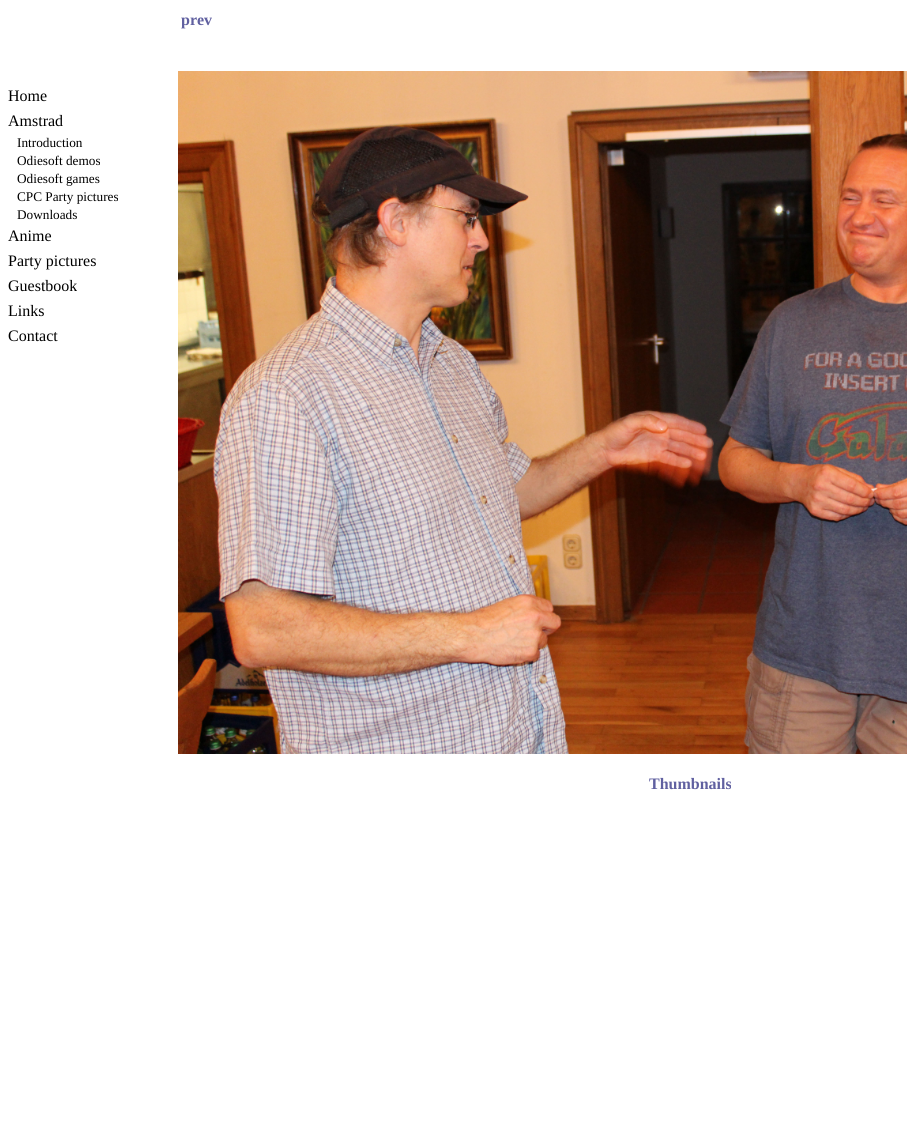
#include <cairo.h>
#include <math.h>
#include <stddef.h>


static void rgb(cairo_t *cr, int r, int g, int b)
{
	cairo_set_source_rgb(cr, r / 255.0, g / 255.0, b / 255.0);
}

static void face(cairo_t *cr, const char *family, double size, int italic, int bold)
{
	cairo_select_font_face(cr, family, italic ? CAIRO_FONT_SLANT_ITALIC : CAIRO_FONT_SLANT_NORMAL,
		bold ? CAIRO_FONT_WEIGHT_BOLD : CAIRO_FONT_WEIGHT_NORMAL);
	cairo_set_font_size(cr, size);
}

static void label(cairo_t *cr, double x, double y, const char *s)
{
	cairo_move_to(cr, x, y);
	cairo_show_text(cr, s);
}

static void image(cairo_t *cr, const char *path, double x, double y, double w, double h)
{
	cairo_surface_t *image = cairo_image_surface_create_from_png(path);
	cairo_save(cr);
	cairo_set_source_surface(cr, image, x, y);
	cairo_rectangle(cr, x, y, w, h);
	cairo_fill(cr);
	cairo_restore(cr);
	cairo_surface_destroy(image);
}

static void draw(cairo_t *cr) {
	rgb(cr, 255, 255, 255);
	cairo_paint(cr);
	face(cr, "Liberation Serif", 16, 0, 0);
	rgb(cr, 0, 0, 0);
	label(cr, 8, 101, "Home");
	label(cr, 8, 126, "Amstrad");
	face(cr, "Liberation Serif", 13.25, 0, 0);
	label(cr, 17, 147, "Introduction");
	label(cr, 17, 165, "Odiesoft demos");
	label(cr, 17, 183, "Odiesoft games");
	label(cr, 17, 201, "CPC Party pictures");
	label(cr, 17, 219, "Downloads");
	face(cr, "Liberation Serif", 16, 0, 0);
	label(cr, 8, 241, "Anime");
	label(cr, 8, 266, "Party pictures");
	label(cr, 8, 291, "Guestbook");
	label(cr, 8, 316, "Links");
	label(cr, 8, 341, "Contact");
	face(cr, "Liberation Serif", 16, 0, 1);
	rgb(cr, 96, 96, 160);
	label(cr, 181, 25, "prev");
	image(cr, "image0.png", 178, 71, 729, 683);
	label(cr, 649, 789, "Thumbnails");
}

int main(void) {
	cairo_surface_t *surface = cairo_image_surface_create(CAIRO_FORMAT_RGB24, 907, 1132);
	cairo_t *cr = cairo_create(surface);
	cairo_font_options_t *options = cairo_font_options_create();
	cairo_font_options_set_hint_metrics(options, CAIRO_HINT_METRICS_OFF);
	cairo_font_options_set_hint_style(options, CAIRO_HINT_STYLE_NONE);
	cairo_set_font_options(cr, options);
	cairo_set_miter_limit(cr, 4);
	draw(cr);
	cairo_surface_write_to_png(surface, "render.png");
	cairo_font_options_destroy(options);
	cairo_destroy(cr);
	cairo_surface_destroy(surface);
	return 0;
}
